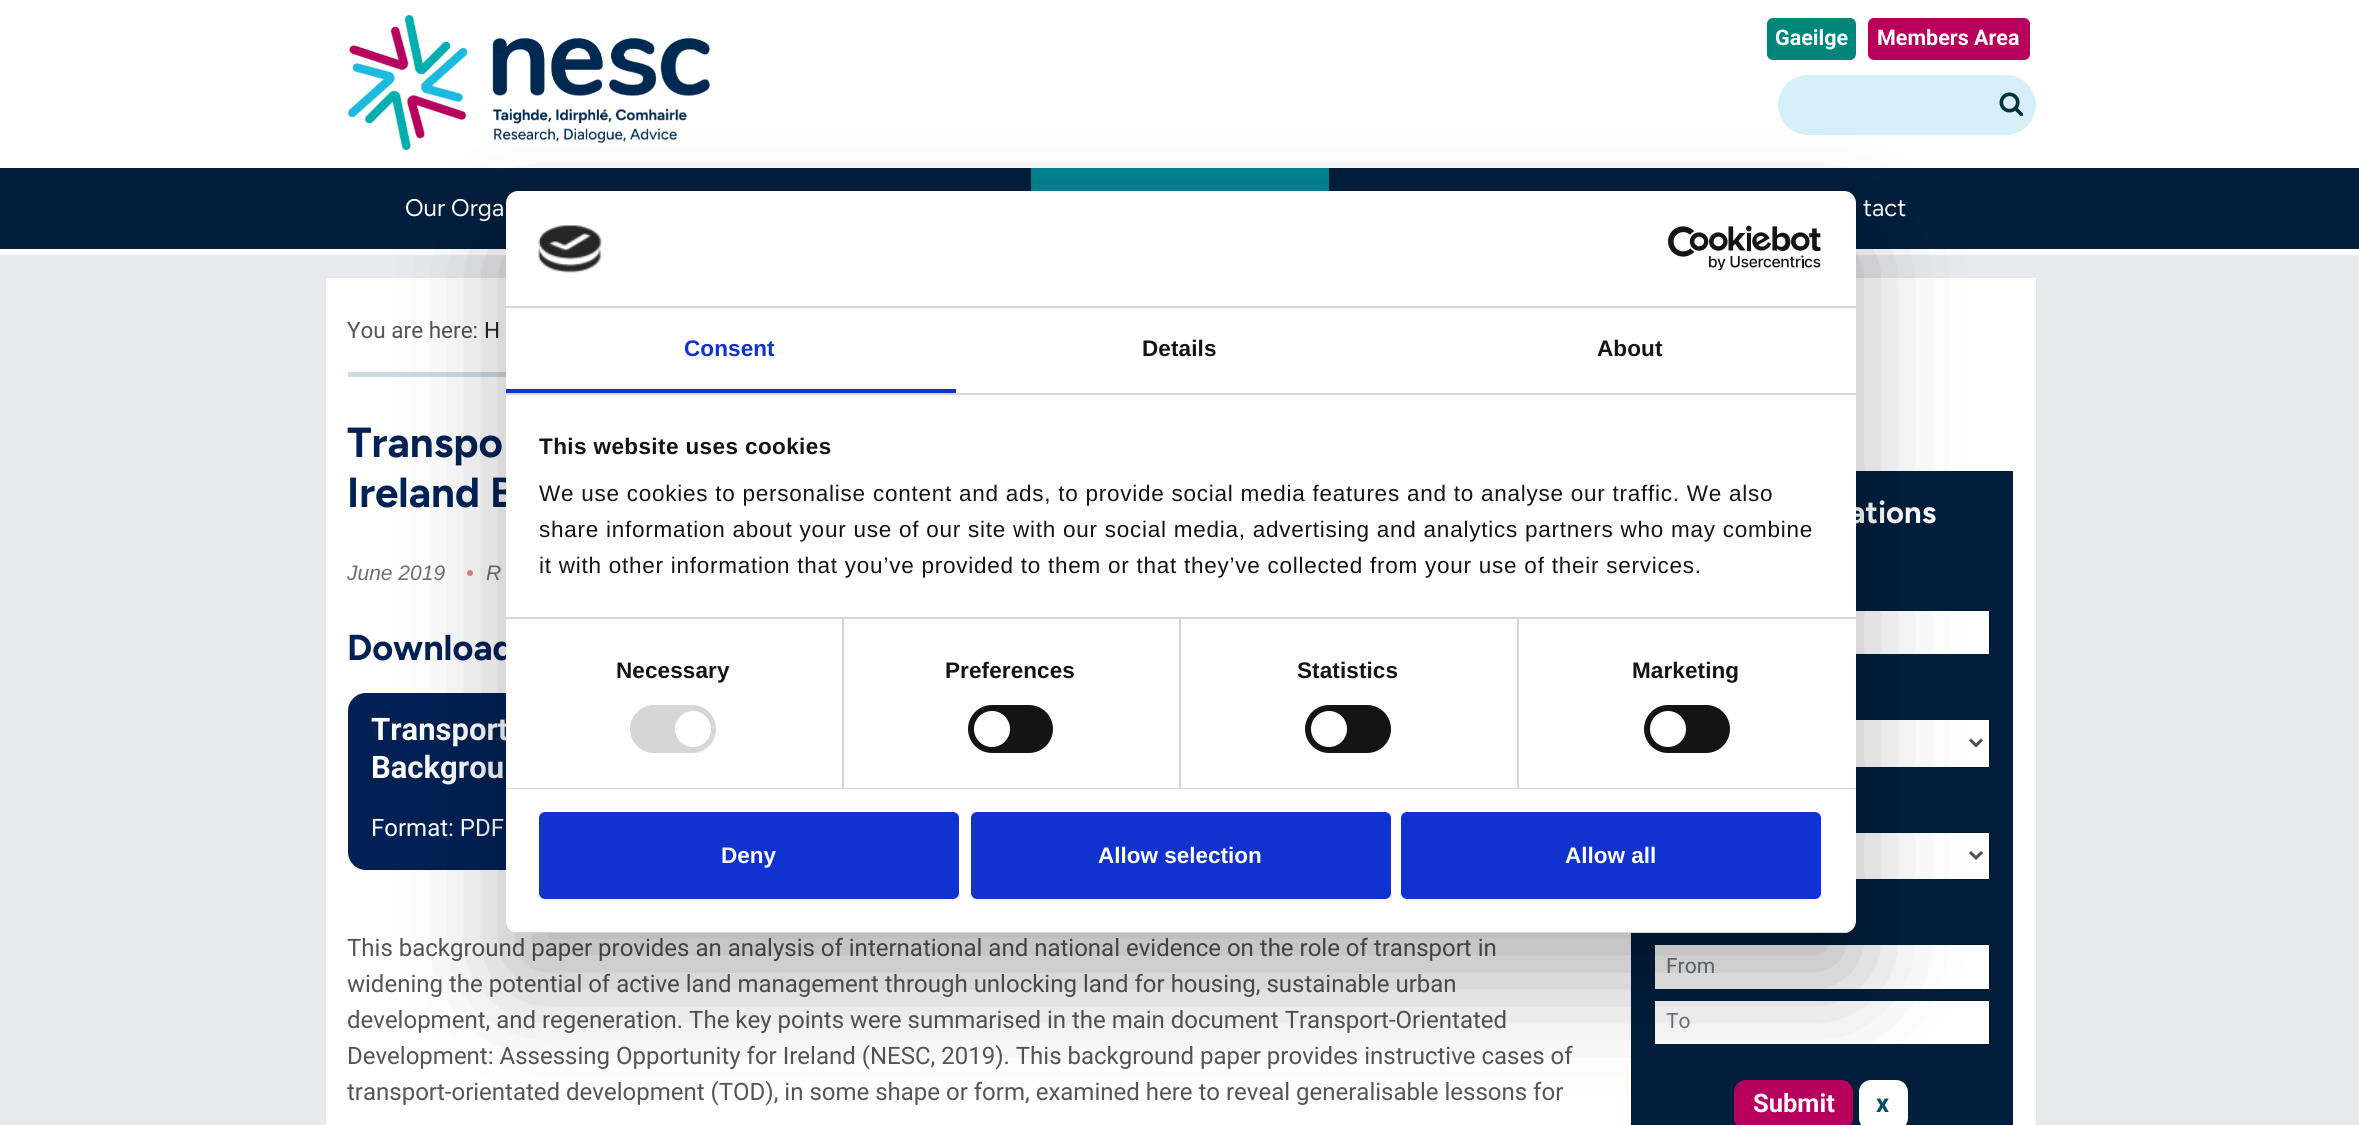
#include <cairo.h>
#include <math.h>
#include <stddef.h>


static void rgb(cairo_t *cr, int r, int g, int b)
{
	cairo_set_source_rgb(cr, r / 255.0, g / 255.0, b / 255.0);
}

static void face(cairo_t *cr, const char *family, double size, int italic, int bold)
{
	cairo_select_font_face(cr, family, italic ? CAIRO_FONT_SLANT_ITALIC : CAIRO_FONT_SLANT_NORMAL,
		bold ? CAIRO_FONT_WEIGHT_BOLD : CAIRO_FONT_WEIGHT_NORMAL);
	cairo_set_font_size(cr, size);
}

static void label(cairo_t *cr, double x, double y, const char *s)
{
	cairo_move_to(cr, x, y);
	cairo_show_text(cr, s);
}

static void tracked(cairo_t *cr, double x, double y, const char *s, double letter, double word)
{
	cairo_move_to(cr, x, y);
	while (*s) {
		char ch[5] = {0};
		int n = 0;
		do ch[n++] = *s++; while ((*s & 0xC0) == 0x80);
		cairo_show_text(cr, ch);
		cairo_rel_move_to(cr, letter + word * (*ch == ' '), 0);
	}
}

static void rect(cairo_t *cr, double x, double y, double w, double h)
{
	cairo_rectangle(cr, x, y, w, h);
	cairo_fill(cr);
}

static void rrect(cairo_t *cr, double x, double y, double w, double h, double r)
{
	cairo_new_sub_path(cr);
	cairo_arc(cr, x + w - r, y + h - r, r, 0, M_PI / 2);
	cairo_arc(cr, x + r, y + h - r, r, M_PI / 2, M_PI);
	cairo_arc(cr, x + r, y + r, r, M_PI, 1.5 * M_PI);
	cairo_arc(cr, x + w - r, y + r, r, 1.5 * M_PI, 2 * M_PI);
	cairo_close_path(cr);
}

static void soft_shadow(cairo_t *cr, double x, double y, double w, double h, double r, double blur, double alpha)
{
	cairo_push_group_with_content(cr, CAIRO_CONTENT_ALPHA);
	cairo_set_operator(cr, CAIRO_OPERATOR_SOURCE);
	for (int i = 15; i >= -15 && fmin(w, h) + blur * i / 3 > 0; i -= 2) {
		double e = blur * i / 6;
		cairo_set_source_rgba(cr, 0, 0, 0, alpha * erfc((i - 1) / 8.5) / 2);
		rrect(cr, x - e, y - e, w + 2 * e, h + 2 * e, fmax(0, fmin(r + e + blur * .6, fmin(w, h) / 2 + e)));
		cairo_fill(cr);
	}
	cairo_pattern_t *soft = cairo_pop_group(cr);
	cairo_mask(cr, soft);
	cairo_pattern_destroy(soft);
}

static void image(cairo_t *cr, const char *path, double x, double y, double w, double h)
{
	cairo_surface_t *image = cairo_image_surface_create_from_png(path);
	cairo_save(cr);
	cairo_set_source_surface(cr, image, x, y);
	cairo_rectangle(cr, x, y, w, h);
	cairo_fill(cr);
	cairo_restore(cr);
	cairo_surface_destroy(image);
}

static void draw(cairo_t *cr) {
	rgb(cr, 232, 233, 237);
	cairo_paint(cr);
	rgb(cr, 255, 255, 255);
	rect(cr, 0, 0, 2359, 168);
	image(cr, "image0.png", 347, 15, 363, 135);
	rgb(cr, 1, 30, 60);
	rect(cr, 0, 168, 2359, 81);
	rgb(cr, 255, 255, 255);
	rect(cr, 0, 249, 2359, 6);
	rgb(cr, 0, 133, 123);
	rrect(cr, 1767, 18, 89, 42, 6);
	cairo_fill(cr);
	face(cr, "Roboto", 21.5, 0, 1);
	rgb(cr, 255, 255, 255);
	label(cr, 1775, 45, "Gaeilge");
	rgb(cr, 182, 0, 92);
	rrect(cr, 1868, 18, 162, 42, 6);
	cairo_fill(cr);
	rgb(cr, 255, 255, 255);
	label(cr, 1877, 45, "Members Area");
	rgb(cr, 214, 239, 248);
	cairo_new_path(cr);
	cairo_move_to(cr, 1808, 75);
	cairo_line_to(cr, 1988, 75);
	cairo_line_to(cr, 1988, 135);
	cairo_line_to(cr, 1808, 135);
	cairo_curve_to(cr, 1791.5, 135, 1778, 121.5, 1778, 105);
	cairo_curve_to(cr, 1778, 88.5, 1791.5, 75, 1808, 75);
	cairo_close_path(cr);
	cairo_fill(cr);
	cairo_new_path(cr);
	cairo_move_to(cr, 1988, 75);
	cairo_line_to(cr, 2006, 75);
	cairo_curve_to(cr, 2022.5, 75, 2036, 88.5, 2036, 105);
	cairo_curve_to(cr, 2036, 121.5, 2022.5, 135, 2006, 135);
	cairo_line_to(cr, 1988, 135);
	cairo_close_path(cr);
	cairo_fill(cr);
	image(cr, "image1.png", 1999, 92, 25, 25);
	rgb(cr, 0, 131, 147);
	rect(cr, 1031, 168, 298, 23);
	face(cr, "Figtree", 24, 0, 0);
	rgb(cr, 255, 255, 255);
	label(cr, 405, 216, "Our Orga");
	label(cr, 1863, 216, "tact");
	rect(cr, 326, 278, 1710, 847);
	rgb(cr, 203, 219, 225);
	rect(cr, 348, 372, 158, 5);
	face(cr, "Roboto", 22.5, 0, 0);
	rgb(cr, 85, 85, 85);
	label(cr, 347, 338, "You are here:");
	rgb(cr, 33, 37, 41);
	label(cr, 484, 338, "H");
	face(cr, "Figtree", 42, 0, 1);
	rgb(cr, 2, 33, 85);
	label(cr, 347, 457, "Transpo");
	label(cr, 347, 507, "Ireland B");
	face(cr, "Liberation Sans", 21, 1, 0);
	rgb(cr, 112, 112, 112);
	label(cr, 347, 580, "June 2019");
	rgb(cr, 223, 139, 124);
	cairo_new_path(cr);
	cairo_arc(cr, 470, 573, 3, 0, 2 * M_PI);
	cairo_fill(cr);
	rgb(cr, 112, 112, 112);
	label(cr, 486, 580, "R");
	face(cr, "Figtree", 36, 0, 1);
	rgb(cr, 2, 33, 85);
	label(cr, 347, 660, "Download");
	rgb(cr, 1, 33, 85);
	rrect(cr, 348, 693, 1238, 177, 18);
	cairo_fill(cr);
	face(cr, "Roboto", 31, 0, 1);
	rgb(cr, 255, 255, 255);
	label(cr, 371, 740, "Transport");
	label(cr, 371, 778, "Backgrou");
	face(cr, "Roboto", 24, 0, 0);
	label(cr, 371, 836, "Format: PDF");
	rgb(cr, 85, 85, 85);
	label(cr, 347, 956, "This background paper provides an analysis of international and national evidence on the role of transport in");
	label(cr, 347, 992, "widening the potential of active land management through unlocking land for housing, sustainable urban");
	label(cr, 347, 1028, "development, and regeneration. The key points were summarised in the main document Transport-Orientated");
	label(cr, 347, 1064, "Development: Assessing Opportunity for Ireland (NESC, 2019). This background paper provides instructive cases of");
	label(cr, 347, 1100, "transport-orientated development (TOD), in some shape or form, examined here to reveal generalisable lessons for");
	rgb(cr, 0, 30, 60);
	rect(cr, 1631, 471, 382, 654);
	face(cr, "Figtree", 31, 0, 1);
	rgb(cr, 255, 255, 255);
	label(cr, 1849, 523, "ations");
	rect(cr, 1856, 611, 133, 43);
	rect(cr, 1856, 720, 133, 47);
	cairo_new_path(cr);
	cairo_move_to(cr, 1970, 739.5);
	cairo_line_to(cr, 1976, 745.5);
	cairo_line_to(cr, 1982, 739.5);
	rgb(cr, 73, 80, 87);
	cairo_set_line_width(cr, 3);
	cairo_stroke(cr);
	rgb(cr, 255, 255, 255);
	rect(cr, 1856, 833, 133, 46);
	cairo_new_path(cr);
	cairo_move_to(cr, 1970, 852);
	cairo_line_to(cr, 1976, 858);
	cairo_line_to(cr, 1982, 852);
	rgb(cr, 73, 80, 87);
	cairo_stroke(cr);
	rgb(cr, 255, 255, 255);
	rect(cr, 1655, 945, 334, 44);
	face(cr, "Roboto", 21, 0, 0);
	rgb(cr, 108, 117, 125);
	label(cr, 1666, 973, "From");
	rgb(cr, 255, 255, 255);
	rect(cr, 1655, 1001, 334, 43);
	rgb(cr, 108, 117, 125);
	label(cr, 1666, 1028, "To");
	rgb(cr, 182, 0, 92);
	rrect(cr, 1734, 1080, 119, 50, 12);
	cairo_fill(cr);
	face(cr, "Roboto", 25.5, 0, 1);
	rgb(cr, 255, 255, 255);
	label(cr, 1753, 1112, "Submit");
	rrect(cr, 1859, 1080, 49, 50, 12);
	cairo_fill(cr);
	rgb(cr, 0, 78, 103);
	label(cr, 1876, 1112, "x");
	rgb(cr, 0, 0, 0);
	soft_shadow(cr, 506, 239, 1350, 742, 12, 51, 0.3);
	rgb(cr, 255, 255, 255);
	rrect(cr, 506, 191, 1350, 742, 12);
	cairo_fill(cr);
	rgb(cr, 214, 214, 214);
	rect(cr, 506, 306, 1350, 2);
	image(cr, "image2.png", 538, 225, 64, 48);
	image(cr, "image3.png", 1668, 225, 153, 45);
	rect(cr, 506, 393, 1350, 2);
	rgb(cr, 16, 50, 207);
	rect(cr, 506, 389, 450, 4);
	face(cr, "Liberation Sans", 22.5, 0, 1);
	tracked(cr, 684, 356, "Consent", 0.1, 0);
	rgb(cr, 20, 20, 20);
	tracked(cr, 1142, 356, "Details", 0.1, 0);
	tracked(cr, 1597, 356, "About", 0.1, 0);
	rgb(cr, 214, 214, 214);
	rect(cr, 842, 618, 2, 170);
	rect(cr, 1179, 618, 2, 170);
	rect(cr, 1517, 618, 2, 170);
	rect(cr, 506, 617, 1350, 2);
	rgb(cr, 20, 20, 20);
	tracked(cr, 539, 454, "This website uses cookies", 0.4, 0);
	face(cr, "Liberation Sans", 22.5, 0, 0);
	tracked(cr, 539, 501, "We use cookies to personalise content and ads, to provide social media features and to analyse our traffic. We also", 0.75, 0);
	tracked(cr, 539, 537, "share information about your use of our site with our social media, advertising and analytics partners who may combine", 0.75, 0);
	tracked(cr, 539, 573, "it with other information that you’ve provided to them or that they’ve collected from your use of their services.", 0.75, 0);
	rgb(cr, 214, 214, 214);
	rect(cr, 506, 788, 1350, 1);
	face(cr, "Liberation Sans", 22.5, 0, 1);
	rgb(cr, 20, 20, 20);
	tracked(cr, 616, 678, "Necessary", 0.1, 0);
	rgb(cr, 214, 214, 214);
	rrect(cr, 630, 705, 86, 48, 24);
	cairo_fill(cr);
	rgb(cr, 255, 255, 255);
	cairo_arc(cr, 693, 729, 18, 0, 2 * M_PI);
	cairo_fill(cr);
	rgb(cr, 20, 20, 20);
	tracked(cr, 945, 678, "Preferences", 0.1, 0);
	rrect(cr, 968, 705, 85, 48, 24);
	cairo_fill(cr);
	rgb(cr, 255, 255, 255);
	cairo_arc(cr, 992, 729, 18, 0, 2 * M_PI);
	cairo_fill(cr);
	rgb(cr, 20, 20, 20);
	tracked(cr, 1297, 678, "Statistics", 0.1, 0);
	rrect(cr, 1305, 705, 86, 48, 24);
	cairo_fill(cr);
	rgb(cr, 255, 255, 255);
	cairo_arc(cr, 1329, 729, 18, 0, 2 * M_PI);
	cairo_fill(cr);
	rgb(cr, 20, 20, 20);
	tracked(cr, 1632, 678, "Marketing", 0.1, 0);
	rrect(cr, 1644, 705, 86, 48, 24);
	cairo_fill(cr);
	rgb(cr, 255, 255, 255);
	cairo_arc(cr, 1668, 729, 18, 0, 2 * M_PI);
	cairo_fill(cr);
	cairo_save(cr);
	rrect(cr, 506, 191, 1350, 742, 12);
	cairo_clip(cr);
	rgb(cr, 214, 214, 214);
	rect(cr, 506, 932, 1350, 1);
	cairo_restore(cr);
	rgb(cr, 16, 50, 207);
	rrect(cr, 540.5, 813.5, 417, 84, 4.5);
	cairo_fill_preserve(cr);
	cairo_stroke(cr);
	rgb(cr, 255, 255, 255);
	label(cr, 721, 863, "Deny");
	rgb(cr, 16, 50, 207);
	rrect(cr, 972.5, 813.5, 417, 84, 4.5);
	cairo_fill_preserve(cr);
	cairo_stroke(cr);
	rgb(cr, 255, 255, 255);
	label(cr, 1098, 863, "Allow selection");
	rgb(cr, 16, 50, 207);
	rrect(cr, 1402.5, 813.5, 417, 84, 4.5);
	cairo_fill_preserve(cr);
	cairo_stroke(cr);
	rgb(cr, 255, 255, 255);
	label(cr, 1565, 863, "Allow all");
}

int main(void) {
	cairo_surface_t *surface = cairo_image_surface_create(CAIRO_FORMAT_RGB24, 2359, 1125);
	cairo_t *cr = cairo_create(surface);
	cairo_font_options_t *options = cairo_font_options_create();
	cairo_font_options_set_hint_metrics(options, CAIRO_HINT_METRICS_OFF);
	cairo_font_options_set_hint_style(options, CAIRO_HINT_STYLE_NONE);
	cairo_set_font_options(cr, options);
	cairo_set_miter_limit(cr, 4);
	draw(cr);
	cairo_surface_write_to_png(surface, "render.png");
	cairo_font_options_destroy(options);
	cairo_destroy(cr);
	cairo_surface_destroy(surface);
	return 0;
}
